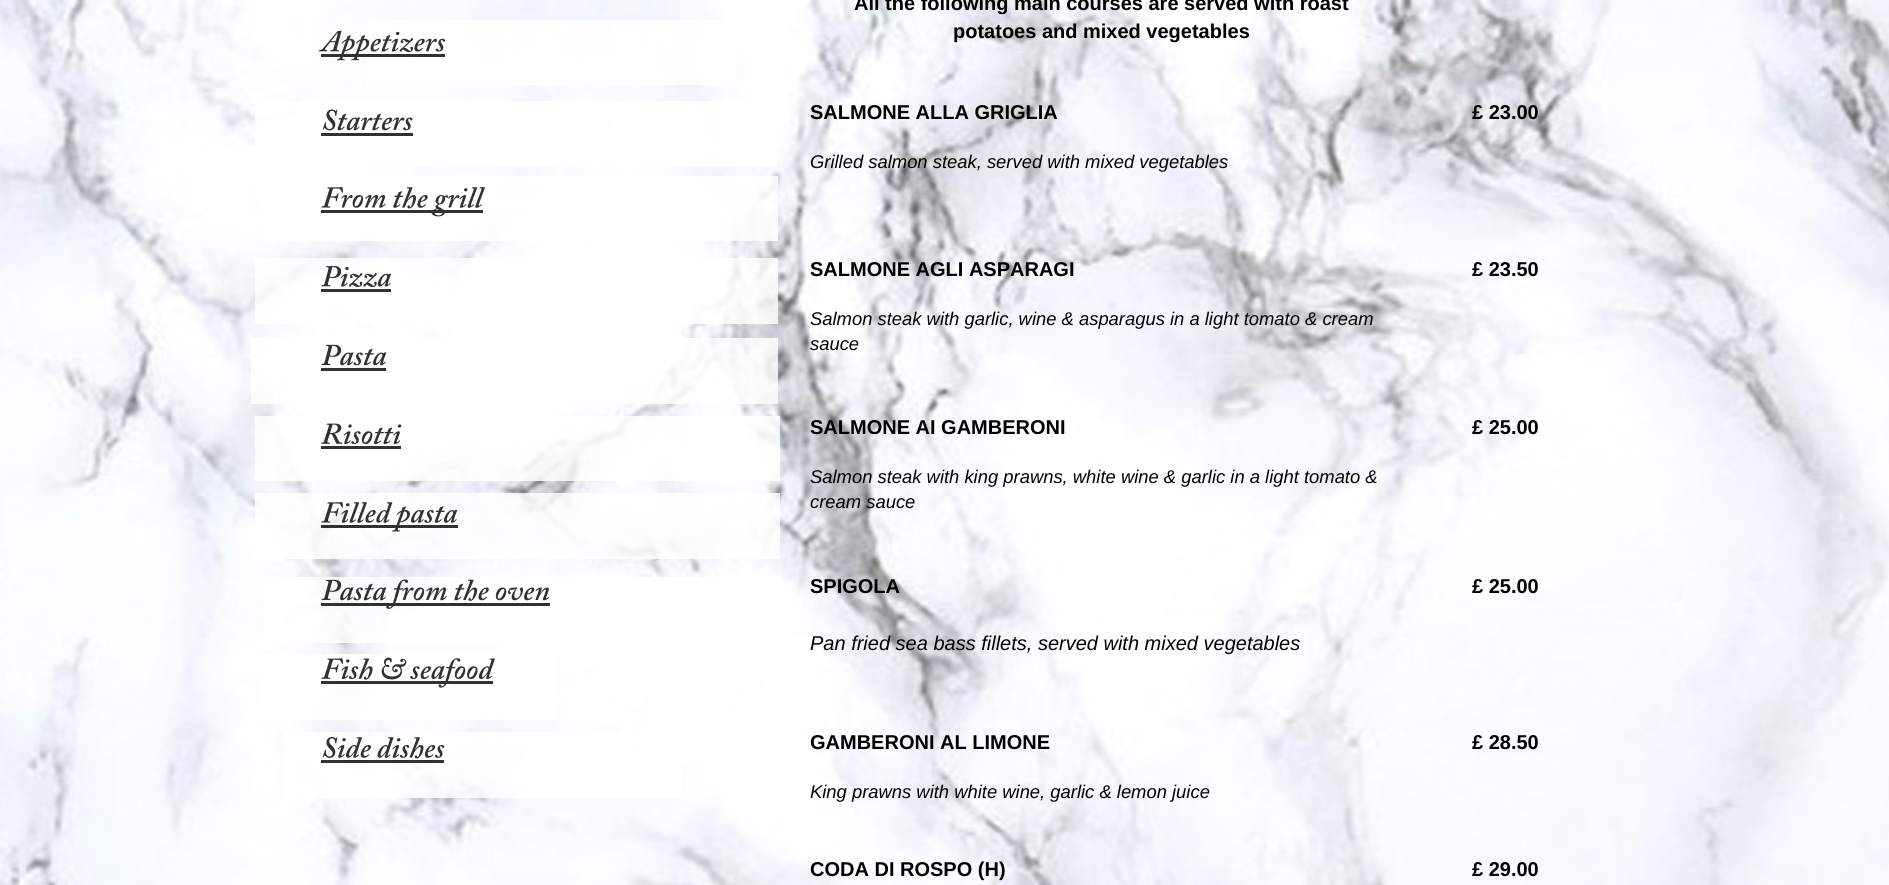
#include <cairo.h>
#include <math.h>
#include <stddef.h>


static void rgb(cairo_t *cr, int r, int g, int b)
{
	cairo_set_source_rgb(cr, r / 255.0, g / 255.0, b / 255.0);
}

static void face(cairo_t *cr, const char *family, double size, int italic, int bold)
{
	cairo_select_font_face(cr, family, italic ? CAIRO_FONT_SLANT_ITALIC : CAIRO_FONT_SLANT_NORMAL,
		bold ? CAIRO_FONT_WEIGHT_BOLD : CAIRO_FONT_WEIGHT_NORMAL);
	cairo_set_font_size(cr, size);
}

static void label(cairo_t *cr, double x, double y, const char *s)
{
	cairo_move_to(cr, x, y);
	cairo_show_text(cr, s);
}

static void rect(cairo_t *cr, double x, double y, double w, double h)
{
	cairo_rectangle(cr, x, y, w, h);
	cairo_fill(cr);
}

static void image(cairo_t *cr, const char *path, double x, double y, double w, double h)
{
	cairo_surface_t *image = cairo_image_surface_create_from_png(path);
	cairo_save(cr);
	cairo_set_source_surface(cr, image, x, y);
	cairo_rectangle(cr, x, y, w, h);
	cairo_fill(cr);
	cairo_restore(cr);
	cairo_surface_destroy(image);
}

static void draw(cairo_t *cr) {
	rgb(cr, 255, 255, 255);
	cairo_paint(cr);
	image(cr, "image0.png", 0, 0, 1889, 885);
	cairo_set_source_rgba(cr, 1, 1, 1, 0.83);
	rect(cr, 366, 20, 370, 65);
	face(cr, "Liberation Sans", 20, 0, 1);
	rgb(cr, 0, 0, 0);
	label(cr, 854, 10, "All the following main courses are served with roast");
	label(cr, 953, 38, "potatoes and mixed vegetables");
	label(cr, 810, 119, "SALMONE ALLA GRIGLIA");
	label(cr, 1472, 119, "£ 23.00");
	face(cr, "Liberation Sans", 18.4, 1, 0);
	label(cr, 810, 168, "Grilled salmon steak, served with mixed vegetables");
	face(cr, "Liberation Sans", 20, 0, 1);
	label(cr, 810, 276, "SALMONE AGLI ASPARAGI");
	label(cr, 1472, 276, "£ 23.50");
	face(cr, "Liberation Sans", 18.4, 1, 0);
	label(cr, 810, 325, "Salmon steak with garlic, wine & asparagus in a light tomato & cream");
	label(cr, 810, 350, "sauce");
	face(cr, "Liberation Sans", 20, 0, 1);
	label(cr, 810, 434, "SALMONE AI GAMBERONI");
	label(cr, 1472, 434, "£ 25.00");
	face(cr, "Liberation Sans", 18.4, 1, 0);
	label(cr, 810, 483, "Salmon steak with king prawns, white wine & garlic in a light tomato &");
	label(cr, 810, 508, "cream sauce");
	face(cr, "Liberation Sans", 20, 0, 1);
	label(cr, 810, 593, "SPIGOLA");
	label(cr, 1472, 593, "£ 25.00");
	face(cr, "Liberation Sans", 20, 1, 0);
	label(cr, 810, 650, "Pan fried sea bass fillets, served with mixed vegetables");
	face(cr, "Liberation Sans", 20, 0, 1);
	label(cr, 810, 749, "GAMBERONI AL LIMONE");
	label(cr, 1472, 749, "£ 28.50");
	face(cr, "Liberation Sans", 18.4, 1, 0);
	label(cr, 810, 798, "King prawns with white wine, garlic & lemon juice");
	face(cr, "Liberation Sans", 20, 0, 1);
	label(cr, 810, 876, "CODA DI ROSPO (H)");
	label(cr, 1472, 876, "£ 29.00");
	rgb(cr, 49, 49, 49);
	rect(cr, 321, 54, 124, 3);
	image(cr, "image1.png", 319, 30, 127, 31);
	cairo_set_source_rgba(cr, 1, 1, 1, 0.83);
	rect(cr, 255, 101, 522, 65);
	image(cr, "image2.png", 322, 109, 91, 22);
	rgb(cr, 49, 49, 49);
	rect(cr, 321, 133, 92, 3);
	cairo_set_source_rgba(cr, 1, 1, 1, 0.83);
	rect(cr, 263, 176, 515, 65);
	rgb(cr, 49, 49, 49);
	rect(cr, 321, 210, 162, 3);
	image(cr, "image3.png", 321, 187, 164, 30);
	cairo_set_source_rgba(cr, 1, 1, 1, 0.83);
	rect(cr, 255, 258, 523, 66);
	image(cr, "image4.png", 321, 266, 70, 21);
	rgb(cr, 49, 49, 49);
	rect(cr, 321, 289, 70, 3);
	cairo_set_source_rgba(cr, 1, 1, 1, 0.83);
	rect(cr, 251, 338, 527, 66);
	image(cr, "image5.png", 321, 344, 66, 22);
	rgb(cr, 49, 49, 49);
	rect(cr, 321, 368, 65, 3);
	cairo_set_source_rgba(cr, 1, 1, 1, 0.83);
	rect(cr, 255, 416, 525, 65);
	image(cr, "image6.png", 321, 423, 81, 22);
	rgb(cr, 49, 49, 49);
	rect(cr, 321, 446, 80, 3);
	cairo_set_source_rgba(cr, 1, 1, 1, 0.83);
	rect(cr, 255, 493, 525, 66);
	rgb(cr, 49, 49, 49);
	rect(cr, 321, 525, 137, 3);
	image(cr, "image7.png", 321, 502, 137, 30);
	cairo_set_source_rgba(cr, 1, 1, 1, 0.83);
	rect(cr, 264, 577, 517, 66);
	rgb(cr, 49, 49, 49);
	rect(cr, 321, 603, 229, 3);
	image(cr, "image8.png", 321, 579, 228, 30);
	cairo_set_source_rgba(cr, 1, 1, 1, 0.83);
	rect(cr, 259, 654, 297, 66);
	rgb(cr, 49, 49, 49);
	rect(cr, 321, 681, 172, 3);
	cairo_set_source_rgba(cr, 1, 1, 1, 0.83);
	rect(cr, 344, 655, 13, 20);
	image(cr, "image9.png", 321, 657, 174, 31);
	rect(cr, 284, 732, 398, 66);
	image(cr, "image10.png", 322, 737, 123, 22);
	rgb(cr, 49, 49, 49);
	rect(cr, 321, 760, 123, 3);
}

int main(void) {
	cairo_surface_t *surface = cairo_image_surface_create(CAIRO_FORMAT_RGB24, 1889, 885);
	cairo_t *cr = cairo_create(surface);
	cairo_font_options_t *options = cairo_font_options_create();
	cairo_font_options_set_hint_metrics(options, CAIRO_HINT_METRICS_OFF);
	cairo_font_options_set_hint_style(options, CAIRO_HINT_STYLE_NONE);
	cairo_set_font_options(cr, options);
	cairo_set_miter_limit(cr, 4);
	draw(cr);
	cairo_surface_write_to_png(surface, "render.png");
	cairo_font_options_destroy(options);
	cairo_destroy(cr);
	cairo_surface_destroy(surface);
	return 0;
}
